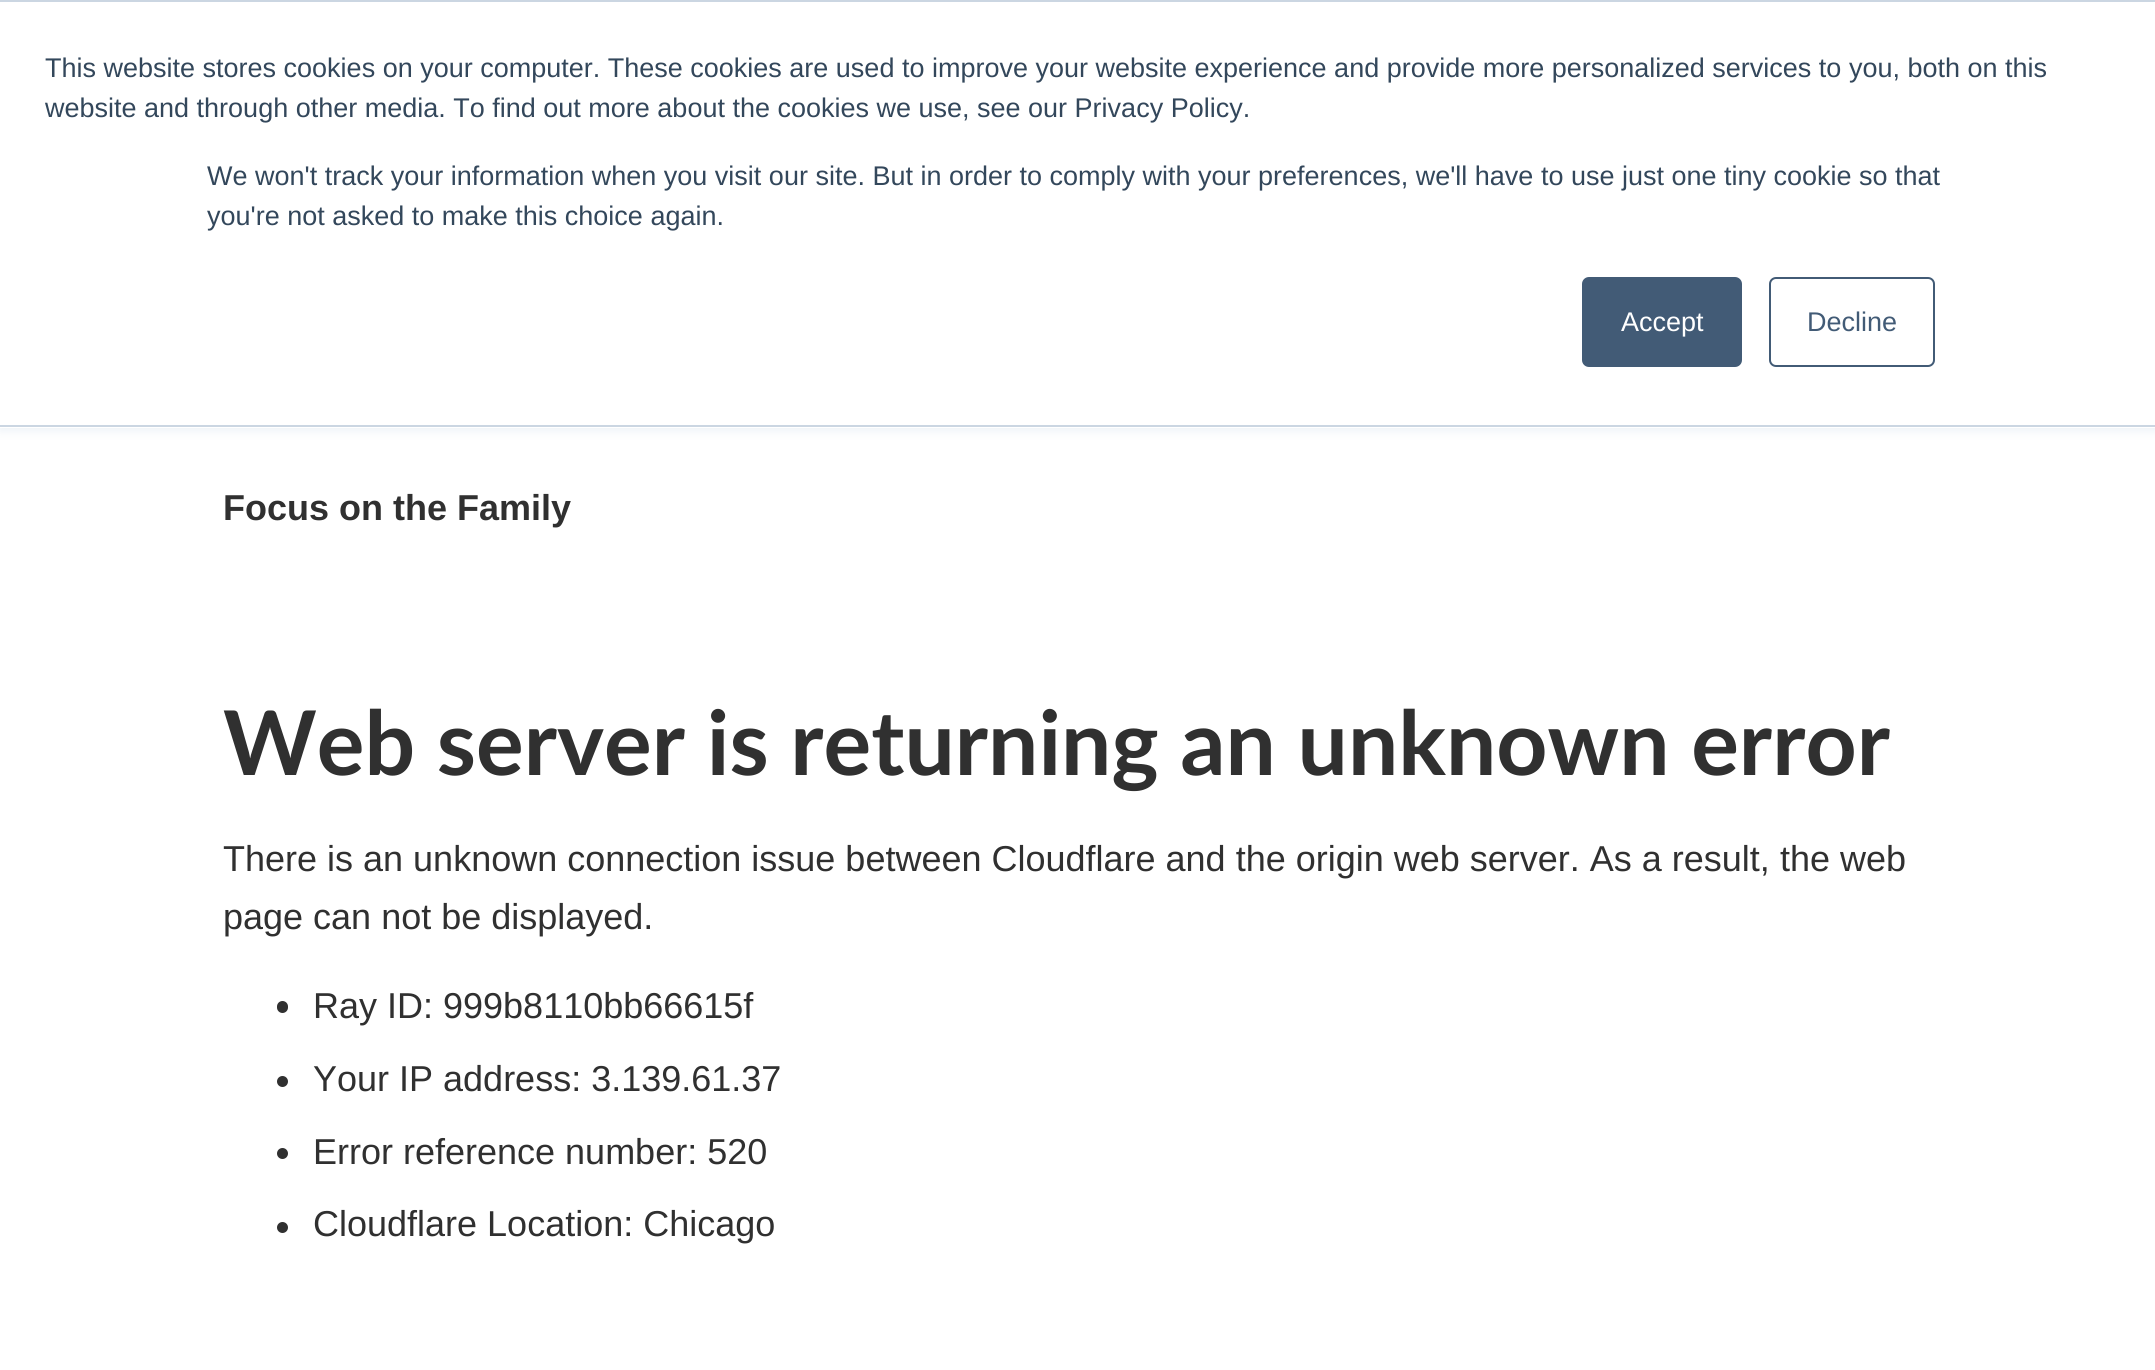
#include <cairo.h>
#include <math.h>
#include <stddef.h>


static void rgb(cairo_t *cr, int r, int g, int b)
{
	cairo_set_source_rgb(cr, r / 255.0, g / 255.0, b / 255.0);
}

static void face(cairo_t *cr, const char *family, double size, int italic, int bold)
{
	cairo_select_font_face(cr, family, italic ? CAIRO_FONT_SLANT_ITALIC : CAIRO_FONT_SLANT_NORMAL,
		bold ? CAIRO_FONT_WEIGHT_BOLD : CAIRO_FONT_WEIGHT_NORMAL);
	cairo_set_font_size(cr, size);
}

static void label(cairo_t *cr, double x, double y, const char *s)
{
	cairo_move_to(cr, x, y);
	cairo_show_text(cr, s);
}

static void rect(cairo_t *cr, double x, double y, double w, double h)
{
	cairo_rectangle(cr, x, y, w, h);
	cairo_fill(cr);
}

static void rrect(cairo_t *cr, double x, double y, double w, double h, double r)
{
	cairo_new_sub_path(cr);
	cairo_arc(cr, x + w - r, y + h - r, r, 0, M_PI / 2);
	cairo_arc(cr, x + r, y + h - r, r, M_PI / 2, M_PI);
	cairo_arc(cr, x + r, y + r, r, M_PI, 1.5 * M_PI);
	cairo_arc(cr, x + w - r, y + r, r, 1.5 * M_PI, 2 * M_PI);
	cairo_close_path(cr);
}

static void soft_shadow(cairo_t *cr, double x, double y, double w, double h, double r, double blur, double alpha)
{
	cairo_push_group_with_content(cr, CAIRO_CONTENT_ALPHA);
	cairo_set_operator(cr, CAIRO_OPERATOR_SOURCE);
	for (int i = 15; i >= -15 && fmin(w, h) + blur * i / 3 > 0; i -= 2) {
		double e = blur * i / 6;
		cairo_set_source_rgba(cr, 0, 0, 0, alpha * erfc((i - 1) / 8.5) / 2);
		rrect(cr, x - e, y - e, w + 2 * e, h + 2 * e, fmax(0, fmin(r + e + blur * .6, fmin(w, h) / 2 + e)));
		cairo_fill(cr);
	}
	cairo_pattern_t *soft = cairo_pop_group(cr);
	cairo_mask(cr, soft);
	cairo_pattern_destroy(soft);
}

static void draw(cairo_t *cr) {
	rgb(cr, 255, 255, 255);
	cairo_paint(cr);
	rgb(cr, 234, 240, 246);
	soft_shadow(cr, 0, 2, 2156, 428, 0, 5.5, 1);
	rgb(cr, 255, 255, 255);
	rect(cr, 0, 2, 2155, 426);
	rgb(cr, 203, 214, 226);
	rect(cr, 0, 0, 2155, 2);
	rect(cr, 0, 425, 2155, 2);
	face(cr, "Liberation Sans", 27, 0, 0);
	rgb(cr, 51, 71, 91);
	label(cr, 45, 77, "This website stores cookies on your computer. These cookies are used to improve your website experience and provide more personalized services to you, both on this");
	label(cr, 45, 117, "website and through other media. To find out more about the cookies we use, see our Privacy Policy.");
	label(cr, 207, 185, "We won't track your information when you visit our site. But in order to comply with your preferences, we'll have to use just one tiny cookie so that");
	label(cr, 207, 225, "you're not asked to make this choice again.");
	rgb(cr, 66, 91, 118);
	rrect(cr, 1583, 278, 158, 88, 6);
	cairo_fill_preserve(cr);
	cairo_stroke(cr);
	rgb(cr, 255, 255, 255);
	label(cr, 1621, 331, "Accept");
	rrect(cr, 1770, 278, 164, 88, 6);
	rgb(cr, 66, 91, 118);
	cairo_stroke(cr);
	label(cr, 1807, 331, "Decline");
	face(cr, "Liberation Sans", 36, 0, 1);
	rgb(cr, 48, 48, 48);
	label(cr, 223, 520, "Focus on the Family");
	face(cr, "Lato", 89.25, 0, 1);
	label(cr, 223, 775, "Web server is returning an unknown error");
	face(cr, "Liberation Sans", 36, 0, 0);
	label(cr, 223, 871, "There is an unknown connection issue between Cloudflare and the origin web server. As a result, the web");
	label(cr, 223, 929, "page can not be displayed.");
	rrect(cr, 277, 1001, 11, 12, 5.5);
	cairo_fill(cr);
	label(cr, 313, 1018, "Ray ID: 999b8110bb66615f");
	cairo_new_path(cr);
	cairo_arc(cr, 282.5, 1081.5, 5.5, 0, 2 * M_PI);
	cairo_fill(cr);
	label(cr, 313, 1091, "Your IP address: 3.139.61.37");
	cairo_new_path(cr);
	cairo_arc(cr, 282.5, 1153.5, 5.5, 0, 2 * M_PI);
	cairo_fill(cr);
	label(cr, 313, 1164, "Error reference number: 520");
	cairo_new_path(cr);
	cairo_arc(cr, 282.5, 1227.5, 5.5, 0, 2 * M_PI);
	cairo_fill(cr);
	label(cr, 313, 1236, "Cloudflare Location: Chicago");
}

int main(void) {
	cairo_surface_t *surface = cairo_image_surface_create(CAIRO_FORMAT_RGB24, 2155, 1370);
	cairo_t *cr = cairo_create(surface);
	cairo_font_options_t *options = cairo_font_options_create();
	cairo_font_options_set_hint_metrics(options, CAIRO_HINT_METRICS_OFF);
	cairo_font_options_set_hint_style(options, CAIRO_HINT_STYLE_NONE);
	cairo_set_font_options(cr, options);
	cairo_set_miter_limit(cr, 4);
	draw(cr);
	cairo_surface_write_to_png(surface, "render.png");
	cairo_font_options_destroy(options);
	cairo_destroy(cr);
	cairo_surface_destroy(surface);
	return 0;
}
